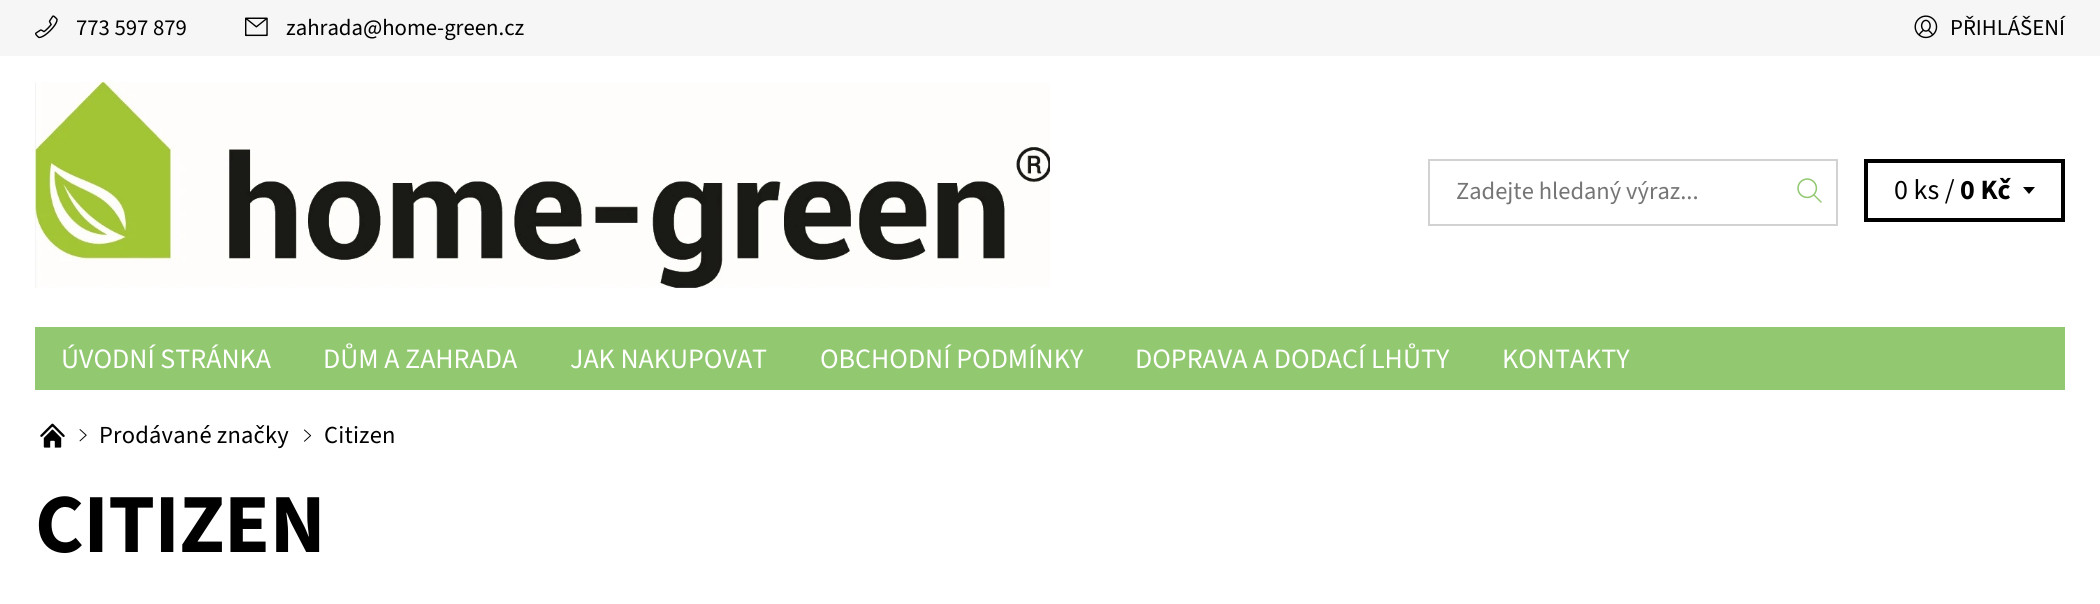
#include <cairo.h>
#include <math.h>
#include <stddef.h>


static void rgb(cairo_t *cr, int r, int g, int b)
{
	cairo_set_source_rgb(cr, r / 255.0, g / 255.0, b / 255.0);
}

static void face(cairo_t *cr, const char *family, double size, int italic, int bold)
{
	cairo_select_font_face(cr, family, italic ? CAIRO_FONT_SLANT_ITALIC : CAIRO_FONT_SLANT_NORMAL,
		bold ? CAIRO_FONT_WEIGHT_BOLD : CAIRO_FONT_WEIGHT_NORMAL);
	cairo_set_font_size(cr, size);
}

static void label(cairo_t *cr, double x, double y, const char *s)
{
	cairo_move_to(cr, x, y);
	cairo_show_text(cr, s);
}

static void tracked(cairo_t *cr, double x, double y, const char *s, double letter, double word)
{
	cairo_move_to(cr, x, y);
	while (*s) {
		char ch[5] = {0};
		int n = 0;
		do ch[n++] = *s++; while ((*s & 0xC0) == 0x80);
		cairo_show_text(cr, ch);
		cairo_rel_move_to(cr, letter + word * (*ch == ' '), 0);
	}
}

static void rect(cairo_t *cr, double x, double y, double w, double h)
{
	cairo_rectangle(cr, x, y, w, h);
	cairo_fill(cr);
}

static void image(cairo_t *cr, const char *path, double x, double y, double w, double h)
{
	cairo_surface_t *image = cairo_image_surface_create_from_png(path);
	cairo_save(cr);
	cairo_set_source_surface(cr, image, x, y);
	cairo_rectangle(cr, x, y, w, h);
	cairo_fill(cr);
	cairo_restore(cr);
	cairo_surface_destroy(image);
}

static void draw(cairo_t *cr) {
	rgb(cr, 255, 255, 255);
	cairo_paint(cr);
	rgb(cr, 246, 246, 246);
	rect(cr, 0, 0, 2100, 56);
	image(cr, "image0.png", 35, 15, 23, 24);
	face(cr, "Source Sans 3", 22.75, 0, 0);
	rgb(cr, 0, 0, 0);
	label(cr, 76, 35, "773 597 879");
	image(cr, "image1.png", 245, 17, 23, 20);
	label(cr, 286, 35, "zahrada@home-green.cz");
	image(cr, "image2.png", 1914, 15, 24, 24);
	label(cr, 1950, 35, "PŘIHLÁŠENÍ");
	image(cr, "image3.png", 35, 82, 1015, 206);
	rgb(cr, 210, 210, 210);
	rect(cr, 1428, 159, 410, 2);
	rect(cr, 1428, 224, 355, 2);
	rect(cr, 1428, 159, 2, 67);
	face(cr, "Source Sans 3", 24.5, 0, 0);
	rgb(cr, 117, 117, 117);
	label(cr, 1456, 199, "Zadejte hledaný výraz...");
	rgb(cr, 210, 210, 210);
	rect(cr, 1836, 159, 2, 67);
	rect(cr, 1783, 224, 55, 2);
	image(cr, "image4.png", 1797, 178, 25, 25);
	cairo_rectangle(cr, 1866, 161, 197, 59);
	rgb(cr, 0, 0, 0);
	cairo_set_line_width(cr, 4);
	cairo_stroke(cr);
	face(cr, "Source Sans 3", 28, 0, 0);
	label(cr, 1894, 199, "0 ks /");
	face(cr, "Source Sans 3", 28, 0, 1);
	label(cr, 1960, 199, "0 Kč");
	cairo_new_path(cr);
	cairo_move_to(cr, 2029, 187);
	cairo_line_to(cr, 2035, 187);
	cairo_line_to(cr, 2029, 194);
	cairo_line_to(cr, 2023, 187);
	cairo_close_path(cr);
	cairo_fill(cr);
	rgb(cr, 145, 200, 112);
	rect(cr, 35, 327, 2030, 63);
	face(cr, "Source Sans 3", 28, 0, 0);
	rgb(cr, 255, 255, 255);
	label(cr, 61, 368, "ÚVODNÍ STRÁNKA");
	label(cr, 323, 368, "DŮM A ZAHRADA");
	label(cr, 570, 368, "JAK NAKUPOVAT");
	label(cr, 820, 368, "OBCHODNÍ PODMÍNKY");
	label(cr, 1135, 368, "DOPRAVA A DODACÍ LHŮTY");
	label(cr, 1502, 368, "KONTAKTY");
	image(cr, "image5.png", 40, 423, 25, 25);
	image(cr, "image6.png", 79, 429, 8, 13);
	face(cr, "Source Sans 3", 24.5, 0, 0);
	rgb(cr, 0, 0, 0);
	tracked(cr, 99, 443, "Prodávané značky", 0.2, 0);
	image(cr, "image7.png", 304, 429, 8, 13);
	tracked(cr, 324, 443, "Citizen", 0.2, 0);
	face(cr, "Source Sans 3", 84, 0, 1);
	tracked(cr, 35, 552, "CITIZEN", -0.5, 0);
}

int main(void) {
	cairo_surface_t *surface = cairo_image_surface_create(CAIRO_FORMAT_RGB24, 2100, 604);
	cairo_t *cr = cairo_create(surface);
	cairo_font_options_t *options = cairo_font_options_create();
	cairo_font_options_set_hint_metrics(options, CAIRO_HINT_METRICS_OFF);
	cairo_font_options_set_hint_style(options, CAIRO_HINT_STYLE_NONE);
	cairo_set_font_options(cr, options);
	cairo_set_miter_limit(cr, 4);
	draw(cr);
	cairo_surface_write_to_png(surface, "render.png");
	cairo_font_options_destroy(options);
	cairo_destroy(cr);
	cairo_surface_destroy(surface);
	return 0;
}
